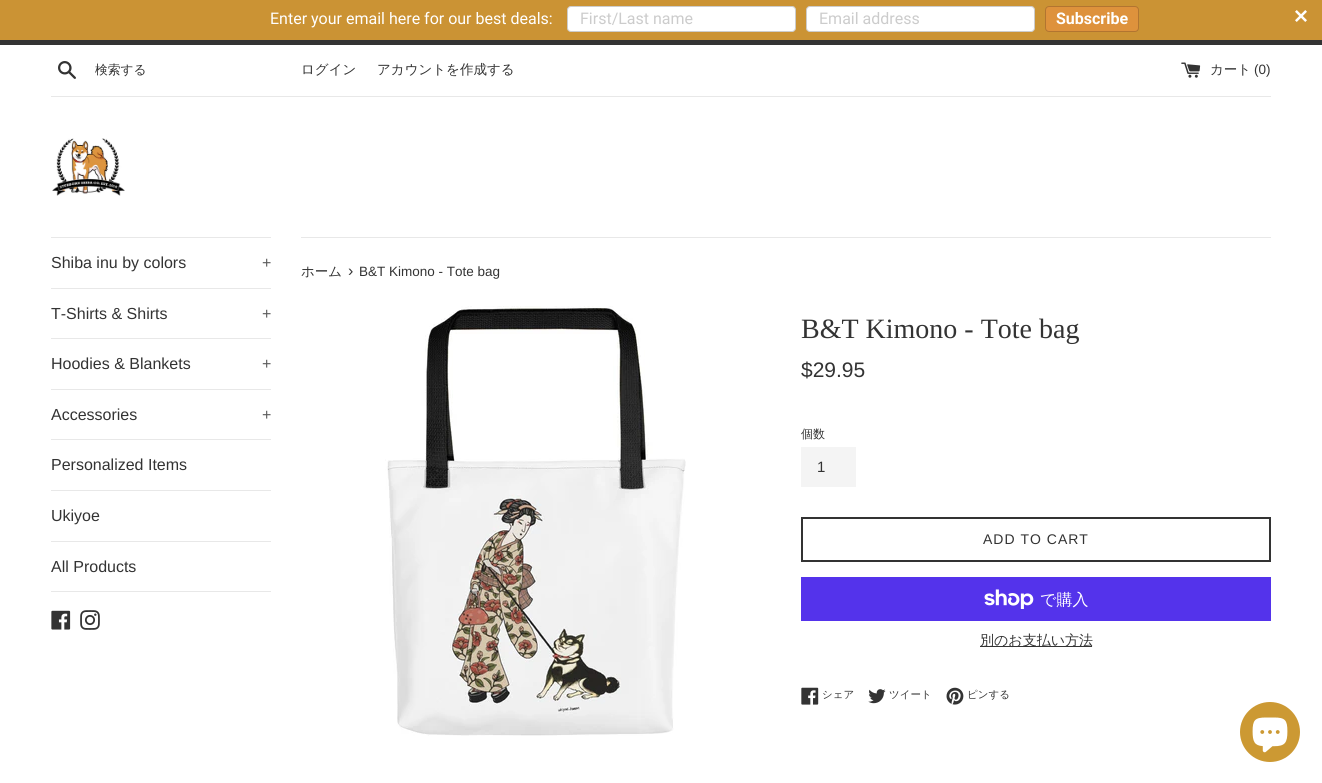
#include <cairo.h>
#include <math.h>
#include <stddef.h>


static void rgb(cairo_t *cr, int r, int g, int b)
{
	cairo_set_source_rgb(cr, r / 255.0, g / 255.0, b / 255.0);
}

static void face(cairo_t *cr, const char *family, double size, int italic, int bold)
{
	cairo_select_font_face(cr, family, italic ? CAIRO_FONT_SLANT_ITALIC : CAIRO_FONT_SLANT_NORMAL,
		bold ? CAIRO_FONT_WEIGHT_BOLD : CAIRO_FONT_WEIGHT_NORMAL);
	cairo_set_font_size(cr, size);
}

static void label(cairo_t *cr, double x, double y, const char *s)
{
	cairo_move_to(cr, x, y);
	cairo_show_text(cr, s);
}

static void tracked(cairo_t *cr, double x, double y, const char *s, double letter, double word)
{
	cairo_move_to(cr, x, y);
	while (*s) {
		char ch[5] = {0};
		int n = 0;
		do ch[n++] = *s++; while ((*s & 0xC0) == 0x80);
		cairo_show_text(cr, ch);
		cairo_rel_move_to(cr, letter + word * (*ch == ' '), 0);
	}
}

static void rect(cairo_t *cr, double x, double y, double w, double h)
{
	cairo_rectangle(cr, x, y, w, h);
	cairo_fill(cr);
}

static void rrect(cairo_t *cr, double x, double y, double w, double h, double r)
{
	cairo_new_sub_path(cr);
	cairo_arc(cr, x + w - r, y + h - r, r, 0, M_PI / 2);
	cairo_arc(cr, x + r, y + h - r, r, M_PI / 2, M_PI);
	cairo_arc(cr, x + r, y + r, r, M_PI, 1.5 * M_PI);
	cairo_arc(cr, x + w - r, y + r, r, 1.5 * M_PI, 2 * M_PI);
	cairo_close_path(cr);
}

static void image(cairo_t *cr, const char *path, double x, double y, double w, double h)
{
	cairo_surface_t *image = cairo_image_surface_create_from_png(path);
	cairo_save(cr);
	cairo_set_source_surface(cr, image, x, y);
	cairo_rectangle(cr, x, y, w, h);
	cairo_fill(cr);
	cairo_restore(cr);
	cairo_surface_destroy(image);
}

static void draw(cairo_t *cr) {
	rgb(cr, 255, 255, 255);
	cairo_paint(cr);
	rgb(cr, 203, 147, 52);
	rect(cr, 0, 0, 1322, 40);
	face(cr, "Roboto", 16, 0, 0);
	rgb(cr, 255, 255, 255);
	label(cr, 270, 24, "Enter your email here for our best deals:");
	rrect(cr, 567, 6, 229, 26, 4);
	cairo_fill(cr);
	rrect(cr, 567.5, 6.5, 228, 25, 3.5);
	cairo_set_source_rgba(cr, 0, 0, 0, 0.2);
	cairo_set_line_width(cr, 1);
	cairo_stroke(cr);
	rgb(cr, 204, 204, 204);
	label(cr, 580, 24, "First/Last name");
	rgb(cr, 255, 255, 255);
	rrect(cr, 806, 6, 229, 26, 4);
	cairo_fill(cr);
	rrect(cr, 806.5, 6.5, 228, 25, 3.5);
	cairo_set_source_rgba(cr, 0, 0, 0, 0.2);
	cairo_stroke(cr);
	rgb(cr, 204, 204, 204);
	label(cr, 819, 24, "Email address");
	rgb(cr, 222, 146, 60);
	rrect(cr, 1045, 6, 94, 26, 4);
	cairo_fill(cr);
	rrect(cr, 1045.5, 6.5, 93, 25, 3.5);
	cairo_set_source_rgba(cr, 0, 0, 0, 0.2);
	cairo_stroke(cr);
	face(cr, "Roboto", 16, 0, 1);
	rgb(cr, 255, 255, 255);
	label(cr, 1056, 24, "Subscribe");
	image(cr, "image0.png", 1295, 10, 12, 12);
	rgb(cr, 51, 51, 51);
	rect(cr, 0, 40, 1322, 5);
	image(cr, "image1.png", 58, 61, 18, 18);
	face(cr, "WenQuanYi Zen Hei Medium", 12.75, 0, 0);
	label(cr, 95, 74, "検索する");
	face(cr, "WenQuanYi Zen Hei Medium", 13.5, 0, 0);
	label(cr, 301, 74, "ログイン");
	label(cr, 377, 74, "アカウントを作成する");
	image(cr, "image2.png", 1181, 62, 20, 16);
	label(cr, 1210, 74, "カート");
	face(cr, "Liberation Sans", 13.5, 0, 0);
	label(cr, 1254, 74, "(0)");
	rgb(cr, 232, 232, 232);
	rect(cr, 51, 96, 1220, 1);
	image(cr, "image3.png", 52, 138, 73, 58);
	rect(cr, 51, 237, 220, 1);
	rect(cr, 51, 288, 220, 1);
	face(cr, "Liberation Sans", 16, 0, 0);
	rgb(cr, 51, 51, 51);
	label(cr, 51, 268, "Shiba inu by colors");
	rgb(cr, 92, 92, 92);
	label(cr, 262, 268, "+");
	rgb(cr, 232, 232, 232);
	rect(cr, 51, 338, 220, 1);
	rgb(cr, 51, 51, 51);
	label(cr, 51, 319, "T-Shirts & Shirts");
	rgb(cr, 92, 92, 92);
	label(cr, 262, 319, "+");
	rgb(cr, 232, 232, 232);
	rect(cr, 51, 389, 220, 1);
	rgb(cr, 51, 51, 51);
	label(cr, 51, 369, "Hoodies & Blankets");
	rgb(cr, 92, 92, 92);
	label(cr, 262, 369, "+");
	rgb(cr, 232, 232, 232);
	rect(cr, 51, 439, 220, 1);
	rgb(cr, 51, 51, 51);
	label(cr, 51, 420, "Accessories");
	rgb(cr, 92, 92, 92);
	label(cr, 262, 420, "+");
	rgb(cr, 232, 232, 232);
	rect(cr, 51, 490, 220, 1);
	rgb(cr, 51, 51, 51);
	label(cr, 51, 470, "Personalized Items");
	rgb(cr, 232, 232, 232);
	rect(cr, 51, 541, 220, 1);
	rgb(cr, 51, 51, 51);
	label(cr, 51, 521, "Ukiyoe");
	rgb(cr, 232, 232, 232);
	rect(cr, 51, 591, 220, 1);
	rgb(cr, 51, 51, 51);
	label(cr, 51, 572, "All Products");
	image(cr, "image4.png", 51, 610, 20, 20);
	image(cr, "image5.png", 80, 610, 20, 20);
	rgb(cr, 232, 232, 232);
	rect(cr, 301, 237, 970, 1);
	face(cr, "WenQuanYi Zen Hei Medium", 13.5, 0, 0);
	rgb(cr, 51, 51, 51);
	label(cr, 301, 276, "ホーム");
	face(cr, "Liberation Sans", 16, 0, 0);
	label(cr, 348, 276, "›");
	face(cr, "Liberation Sans", 13.5, 0, 0);
	label(cr, 359, 276, "B&T Kimono - Tote bag");
	image(cr, "image6.png", 385, 306, 301, 430);
	face(cr, "Liberation Serif", 28, 0, 0);
	label(cr, 801, 338, "B&T Kimono - Tote bag");
	face(cr, "Liberation Sans", 21, 0, 0);
	label(cr, 801, 377, "$29.95");
	face(cr, "WenQuanYi Zen Hei Medium", 12, 0, 0);
	label(cr, 801, 438, "個数");
	rgb(cr, 244, 244, 244);
	rect(cr, 801, 447, 55, 40);
	face(cr, "Liberation Sans", 15, 0, 0);
	rgb(cr, 51, 51, 51);
	label(cr, 817, 472, "1");
	cairo_rectangle(cr, 802, 518, 468, 43);
	cairo_set_line_width(cr, 2);
	cairo_stroke(cr);
	face(cr, "Liberation Sans", 14, 0, 0);
	tracked(cr, 983, 544, "ADD TO CART", 1, 0);
	rgb(cr, 84, 51, 235);
	rect(cr, 801, 577, 470, 44);
	image(cr, "image7.png", 984, 589, 50, 20);
	face(cr, "WenQuanYi Zen Hei Medium", 16, 0, 0);
	rgb(cr, 255, 255, 255);
	label(cr, 1040, 605, "で購入");
	rgb(cr, 51, 51, 51);
	rect(cr, 980, 646, 112, 1);
	face(cr, "WenQuanYi Zen Hei Medium", 14, 0, 0);
	label(cr, 980, 645, "別のお支払い方法");
	image(cr, "image8.png", 801, 687, 18, 18);
	face(cr, "WenQuanYi Zen Hei Medium", 10.5, 0, 0);
	label(cr, 822, 698, "シェア");
	image(cr, "image9.png", 868, 689, 18, 15);
	label(cr, 889, 698, "ツイート");
	image(cr, "image10.png", 946, 687, 18, 18);
	label(cr, 967, 698, "ピンする");
	rgb(cr, 204, 153, 51);
	cairo_new_path(cr);
	cairo_arc(cr, 1270, 732, 30, 0, 2 * M_PI);
	cairo_fill(cr);
	image(cr, "image11.png", 1252, 717, 36, 36);
}

int main(void) {
	cairo_surface_t *surface = cairo_image_surface_create(CAIRO_FORMAT_RGB24, 1322, 783);
	cairo_t *cr = cairo_create(surface);
	cairo_font_options_t *options = cairo_font_options_create();
	cairo_font_options_set_hint_metrics(options, CAIRO_HINT_METRICS_OFF);
	cairo_font_options_set_hint_style(options, CAIRO_HINT_STYLE_NONE);
	cairo_set_font_options(cr, options);
	cairo_set_miter_limit(cr, 4);
	draw(cr);
	cairo_surface_write_to_png(surface, "render.png");
	cairo_font_options_destroy(options);
	cairo_destroy(cr);
	cairo_surface_destroy(surface);
	return 0;
}
